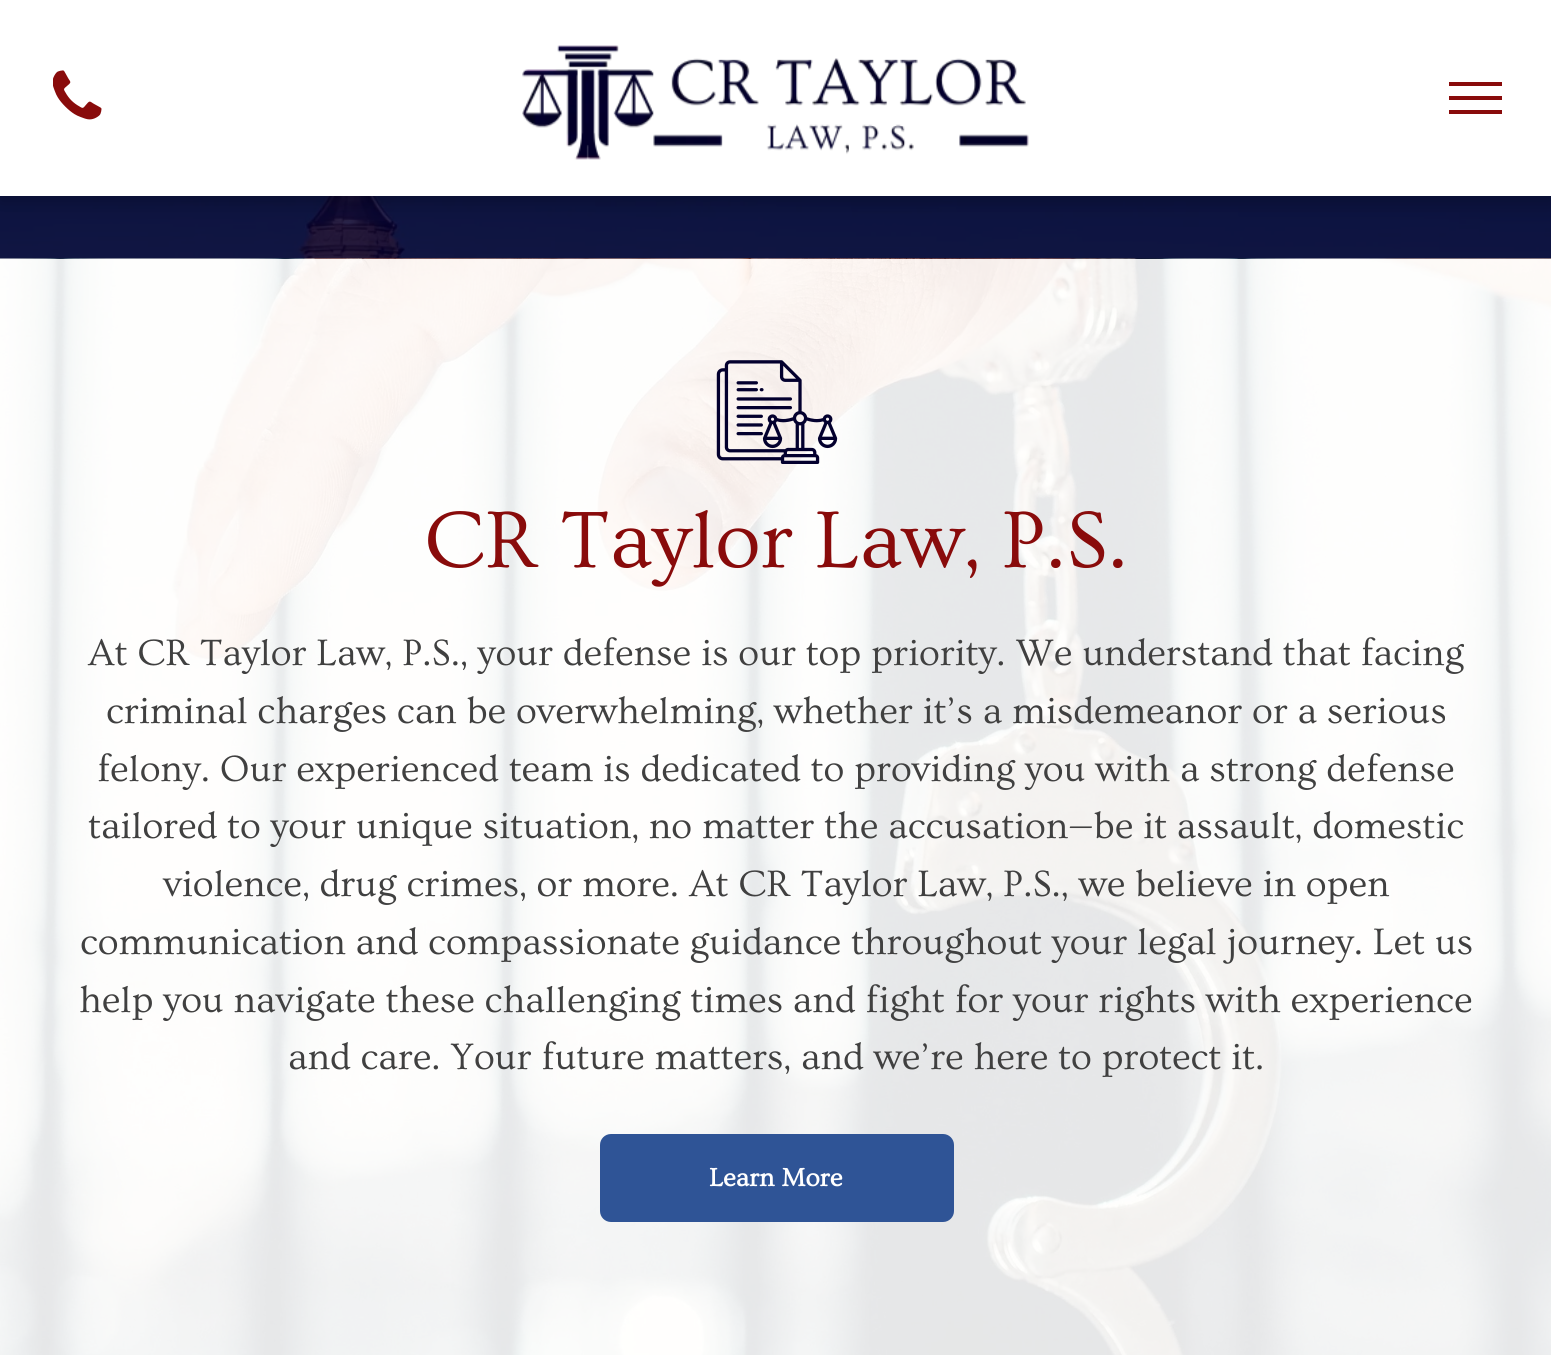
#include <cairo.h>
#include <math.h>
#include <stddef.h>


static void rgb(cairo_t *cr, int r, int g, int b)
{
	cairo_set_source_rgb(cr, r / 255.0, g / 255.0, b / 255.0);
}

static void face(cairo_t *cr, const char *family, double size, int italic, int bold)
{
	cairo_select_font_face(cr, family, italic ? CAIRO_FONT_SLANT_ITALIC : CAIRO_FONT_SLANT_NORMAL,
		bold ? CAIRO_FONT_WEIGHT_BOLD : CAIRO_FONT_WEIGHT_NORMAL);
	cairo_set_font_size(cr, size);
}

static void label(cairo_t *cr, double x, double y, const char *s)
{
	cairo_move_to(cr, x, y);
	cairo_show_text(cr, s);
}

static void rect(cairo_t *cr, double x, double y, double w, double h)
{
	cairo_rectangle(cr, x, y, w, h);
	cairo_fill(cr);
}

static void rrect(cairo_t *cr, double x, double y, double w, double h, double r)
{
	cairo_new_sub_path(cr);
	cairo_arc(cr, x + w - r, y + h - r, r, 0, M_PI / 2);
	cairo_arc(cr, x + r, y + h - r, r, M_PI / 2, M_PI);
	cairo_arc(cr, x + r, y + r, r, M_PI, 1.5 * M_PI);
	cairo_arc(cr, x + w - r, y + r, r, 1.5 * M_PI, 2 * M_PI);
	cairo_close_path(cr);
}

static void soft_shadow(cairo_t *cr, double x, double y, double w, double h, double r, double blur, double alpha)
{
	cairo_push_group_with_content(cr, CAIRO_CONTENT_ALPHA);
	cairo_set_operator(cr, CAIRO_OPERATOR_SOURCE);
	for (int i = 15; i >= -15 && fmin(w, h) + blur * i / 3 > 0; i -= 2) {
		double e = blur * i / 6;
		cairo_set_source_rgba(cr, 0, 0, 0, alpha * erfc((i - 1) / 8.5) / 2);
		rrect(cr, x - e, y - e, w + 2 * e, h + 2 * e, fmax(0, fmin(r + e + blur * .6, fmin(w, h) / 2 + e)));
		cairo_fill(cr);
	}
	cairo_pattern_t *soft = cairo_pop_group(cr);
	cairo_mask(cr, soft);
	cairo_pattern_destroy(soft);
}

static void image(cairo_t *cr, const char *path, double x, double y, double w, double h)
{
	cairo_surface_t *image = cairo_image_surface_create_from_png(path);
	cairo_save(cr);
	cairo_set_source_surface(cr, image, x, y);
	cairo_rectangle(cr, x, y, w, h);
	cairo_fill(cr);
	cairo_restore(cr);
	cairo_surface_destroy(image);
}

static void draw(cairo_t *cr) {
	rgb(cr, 255, 255, 255);
	cairo_paint(cr);
	image(cr, "image2.png", 0, 196, 1551, 63);
	rgb(cr, 0, 0, 0);
	soft_shadow(cr, 0, 5, 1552, 196, 0, 9.5, 0.25);
	rgb(cr, 255, 255, 255);
	rect(cr, 0, 0, 1551, 196);
	image(cr, "image0.png", 53, 70, 49, 50);
	image(cr, "image1.png", 522, 45, 507, 115);
	rgb(cr, 137, 11, 11);
	rect(cr, 1449, 82, 53, 4);
	rect(cr, 1449, 96, 53, 4);
	rect(cr, 1449, 110, 53, 4);
	image(cr, "image3.png", 0, 258, 1551, 1097);
	image(cr, "image4.png", 716, 360, 122, 104);
	face(cr, "Ovo", 84, 0, 0);
	label(cr, 424, 567, "CR Taylor Law, P.S.");
	face(cr, "Ovo", 38.5, 0, 0);
	rgb(cr, 64, 64, 64);
	label(cr, 88, 665, "At CR Taylor Law, P.S., your defense is our top priority. We understand that facing");
	label(cr, 106, 723, "criminal charges can be overwhelming, whether it’s a misdemeanor or a serious");
	label(cr, 97, 781, "felony. Our experienced team is dedicated to providing you with a strong defense");
	label(cr, 88, 838, "tailored to your unique situation, no matter the accusation—be it assault, domestic");
	label(cr, 163, 896, "violence, drug crimes, or more. At CR Taylor Law, P.S., we believe in open");
	label(cr, 80, 954, "communication and compassionate guidance throughout your legal journey. Let us");
	label(cr, 79, 1012, "help you navigate these challenging times and fight for your rights with experience");
	label(cr, 288, 1069, "and care. Your future matters, and we’re here to protect it.");
	rgb(cr, 47, 84, 150);
	rrect(cr, 601, 1135, 352, 86, 10);
	cairo_fill_preserve(cr);
	cairo_stroke(cr);
	face(cr, "Ovo", 26.25, 0, 1);
	rgb(cr, 255, 255, 255);
	label(cr, 709, 1186, "Learn More");
}

int main(void) {
	cairo_surface_t *surface = cairo_image_surface_create(CAIRO_FORMAT_RGB24, 1551, 1355);
	cairo_t *cr = cairo_create(surface);
	cairo_font_options_t *options = cairo_font_options_create();
	cairo_font_options_set_hint_metrics(options, CAIRO_HINT_METRICS_OFF);
	cairo_font_options_set_hint_style(options, CAIRO_HINT_STYLE_NONE);
	cairo_set_font_options(cr, options);
	cairo_set_miter_limit(cr, 4);
	draw(cr);
	cairo_surface_write_to_png(surface, "render.png");
	cairo_font_options_destroy(options);
	cairo_destroy(cr);
	cairo_surface_destroy(surface);
	return 0;
}
